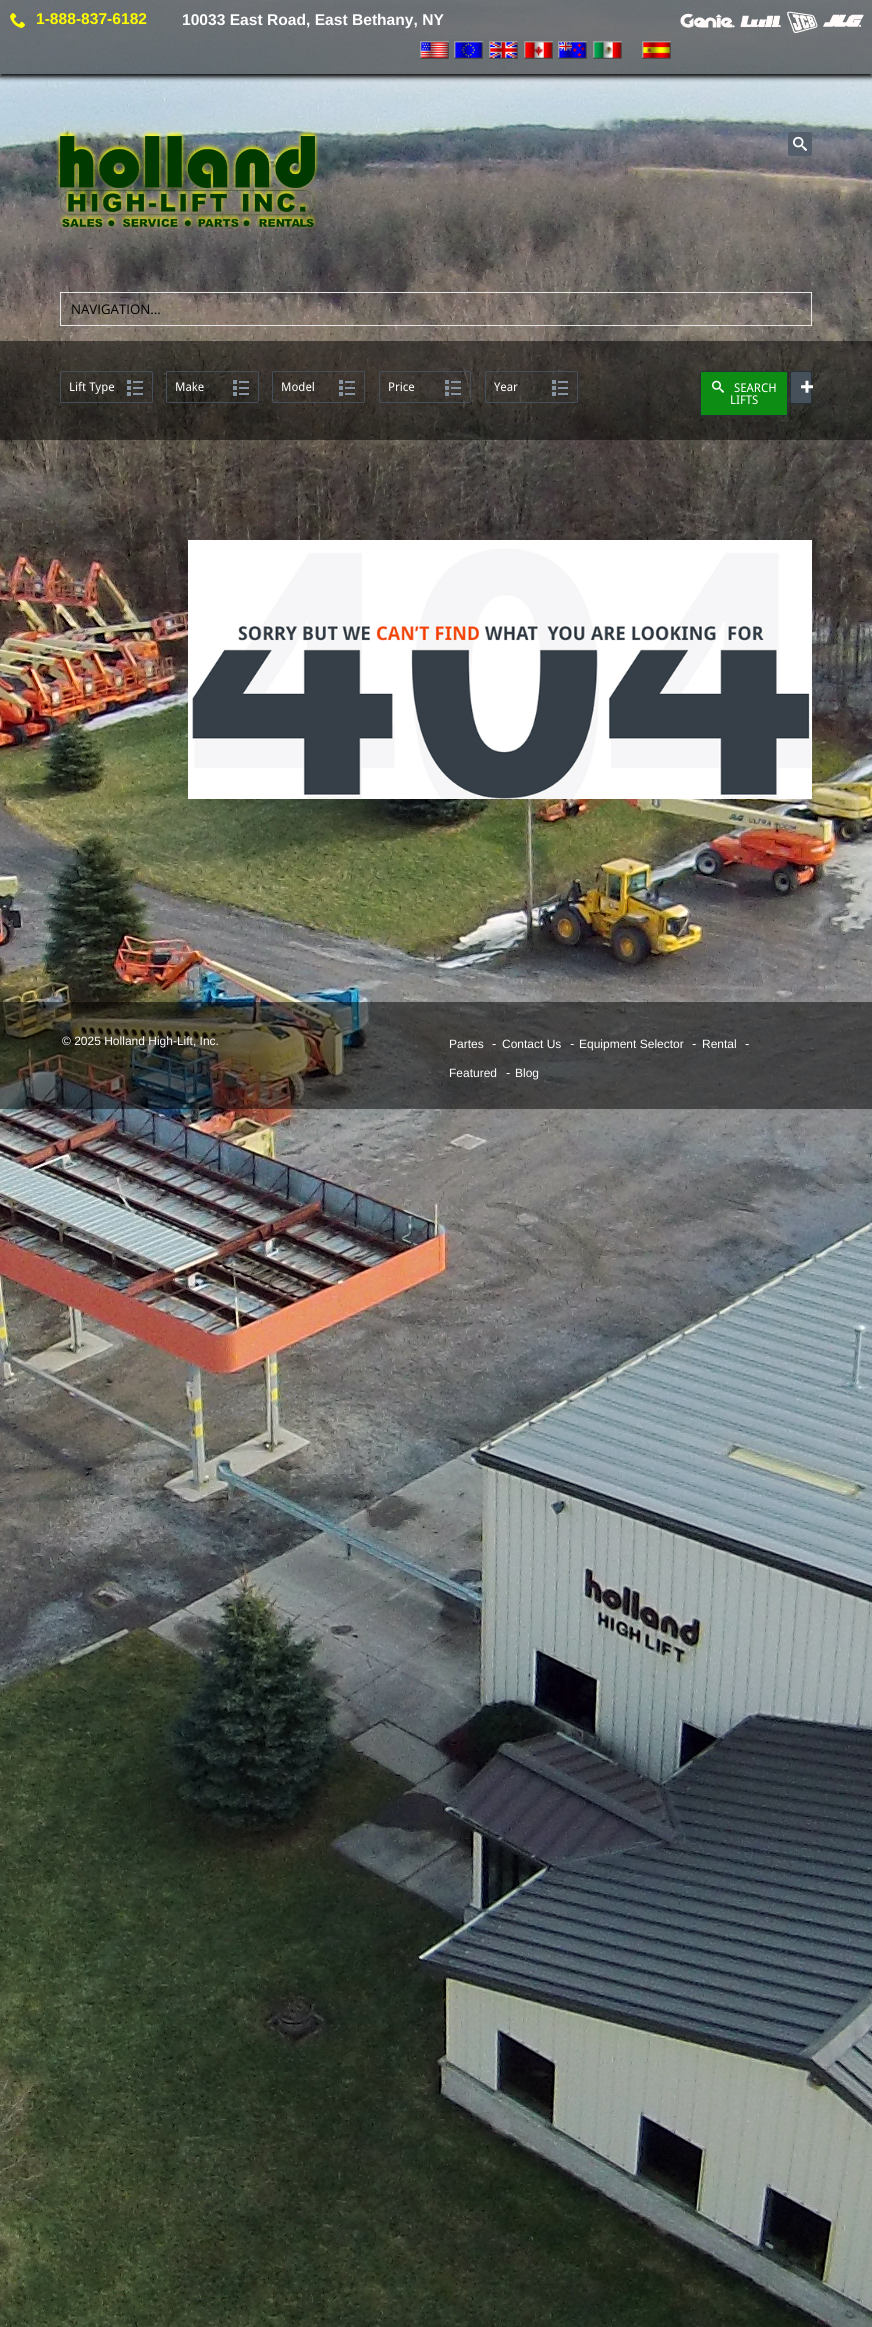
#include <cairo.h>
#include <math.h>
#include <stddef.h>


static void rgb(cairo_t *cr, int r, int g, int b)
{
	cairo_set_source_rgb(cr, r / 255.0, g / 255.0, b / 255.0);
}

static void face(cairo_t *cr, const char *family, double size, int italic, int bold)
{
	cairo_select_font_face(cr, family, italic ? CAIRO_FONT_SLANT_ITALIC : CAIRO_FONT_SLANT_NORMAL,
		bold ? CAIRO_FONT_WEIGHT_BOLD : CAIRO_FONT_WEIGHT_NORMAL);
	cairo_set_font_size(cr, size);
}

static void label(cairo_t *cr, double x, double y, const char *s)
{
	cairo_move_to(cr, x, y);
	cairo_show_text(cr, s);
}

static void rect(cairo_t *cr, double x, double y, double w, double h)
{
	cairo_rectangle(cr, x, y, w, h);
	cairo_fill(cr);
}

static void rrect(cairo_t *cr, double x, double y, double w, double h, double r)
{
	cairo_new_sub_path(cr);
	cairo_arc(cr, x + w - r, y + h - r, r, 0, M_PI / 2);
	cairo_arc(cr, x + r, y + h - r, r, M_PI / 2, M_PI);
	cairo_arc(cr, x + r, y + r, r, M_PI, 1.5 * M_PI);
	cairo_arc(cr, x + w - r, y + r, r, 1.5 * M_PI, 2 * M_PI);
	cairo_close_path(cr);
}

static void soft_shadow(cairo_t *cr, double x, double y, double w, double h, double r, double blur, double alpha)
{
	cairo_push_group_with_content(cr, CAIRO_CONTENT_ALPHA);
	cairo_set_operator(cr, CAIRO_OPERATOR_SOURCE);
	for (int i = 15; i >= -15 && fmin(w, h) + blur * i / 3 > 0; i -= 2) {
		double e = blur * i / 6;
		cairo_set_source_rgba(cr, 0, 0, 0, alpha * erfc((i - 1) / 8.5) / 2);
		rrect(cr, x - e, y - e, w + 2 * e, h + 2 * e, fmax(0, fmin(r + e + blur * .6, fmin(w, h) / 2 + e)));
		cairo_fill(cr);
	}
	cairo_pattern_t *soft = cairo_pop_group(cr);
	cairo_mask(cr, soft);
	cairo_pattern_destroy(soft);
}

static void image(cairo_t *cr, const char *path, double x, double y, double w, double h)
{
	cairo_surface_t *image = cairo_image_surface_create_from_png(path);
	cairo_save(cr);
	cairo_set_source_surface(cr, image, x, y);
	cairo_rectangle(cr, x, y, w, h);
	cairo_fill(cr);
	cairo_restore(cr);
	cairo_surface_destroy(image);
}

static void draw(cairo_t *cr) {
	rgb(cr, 255, 255, 255);
	cairo_paint(cr);
	image(cr, "image0.png", 0, 0, 872, 2327);
	cairo_save(cr);
	cairo_rectangle(cr, 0, 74, 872, 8);
	cairo_clip(cr);
	rgb(cr, 0, 0, 0);
	soft_shadow(cr, 0, 3, 872, 74, 0, 2.5, 1);
	cairo_restore(cr);
	cairo_set_source_rgba(cr, 0, 0, 0, 0.5);
	rect(cr, 0, 0, 872, 74);
	image(cr, "image1.png", 10, 13, 15, 15);
	face(cr, "Liberation Sans", 15.6, 0, 1);
	rgb(cr, 255, 255, 0);
	label(cr, 36, 24, "1-888-837-6182");
	rgb(cr, 255, 255, 255);
	label(cr, 182, 25, "10033 East Road, East Bethany, NY");
	image(cr, "image2.png", 680, 11, 184, 22);
	image(cr, "image3.png", 420, 41, 29, 18);
	image(cr, "image4.png", 454, 41, 29, 18);
	image(cr, "image5.png", 489, 41, 29, 18);
	image(cr, "image6.png", 524, 41, 29, 18);
	image(cr, "image7.png", 558, 41, 29, 18);
	image(cr, "image8.png", 593, 41, 29, 18);
	image(cr, "image9.png", 642, 41, 29, 18);
	image(cr, "image10.png", 56, 130, 263, 99);
	rgb(cr, 84, 95, 107);
	rrect(cr, 788, 132, 24, 24, 2);
	cairo_fill(cr);
	image(cr, "image11.png", 793, 136, 14, 15);
	cairo_rectangle(cr, 60.5, 292.5, 751, 33);
	rgb(cr, 231, 231, 231);
	cairo_set_line_width(cr, 1);
	cairo_stroke(cr);
	face(cr, "Open Sans", 13.25, 0, 0);
	rgb(cr, 0, 0, 0);
	label(cr, 71, 314, "NAVIGATION...");
	cairo_set_source_rgba(cr, 0, 0, 0, 0.5);
	rect(cr, 0, 341, 872, 99);
	rrect(cr, 60.5, 371.5, 92, 31, 1.5);
	rgb(cr, 70, 80, 90);
	cairo_stroke(cr);
	face(cr, "Droid Sans", 12, 0, 0);
	rgb(cr, 255, 255, 255);
	label(cr, 69, 391, "Lift Type");
	image(cr, "image12.png", 127, 380, 16, 16);
	rrect(cr, 166.5, 371.5, 92, 31, 1.5);
	rgb(cr, 70, 80, 90);
	cairo_stroke(cr);
	rgb(cr, 255, 255, 255);
	label(cr, 175, 391, "Make");
	image(cr, "image13.png", 233, 380, 16, 16);
	rrect(cr, 272.5, 371.5, 92, 31, 1.5);
	rgb(cr, 70, 80, 90);
	cairo_stroke(cr);
	rgb(cr, 255, 255, 255);
	label(cr, 281, 391, "Model");
	image(cr, "image14.png", 339, 380, 16, 16);
	rrect(cr, 379.5, 371.5, 91, 31, 1.5);
	rgb(cr, 70, 80, 90);
	cairo_stroke(cr);
	rgb(cr, 255, 255, 255);
	label(cr, 388, 391, "Price");
	image(cr, "image15.png", 445, 380, 16, 16);
	rrect(cr, 485.5, 371.5, 92, 31, 1.5);
	rgb(cr, 70, 80, 90);
	cairo_stroke(cr);
	rgb(cr, 255, 255, 255);
	label(cr, 494, 391, "Year");
	image(cr, "image16.png", 552, 380, 16, 16);
	rgb(cr, 13, 141, 20);
	rrect(cr, 700.5, 371.5, 87, 44, 1.5);
	cairo_fill_preserve(cr);
	rgb(cr, 40, 48, 56);
	cairo_stroke(cr);
	image(cr, "image17.png", 712, 380, 12, 13);
	rgb(cr, 255, 255, 255);
	label(cr, 734, 392, "SEARCH");
	label(cr, 730, 404, "LIFTS");
	rgb(cr, 70, 80, 90);
	rrect(cr, 790.5, 371.5, 21, 32, 1.5);
	cairo_fill_preserve(cr);
	rgb(cr, 40, 48, 56);
	cairo_stroke(cr);
	image(cr, "image18.png", 801, 380, 12, 13);
	image(cr, "image19.png", 188, 540, 624, 259);
	cairo_set_source_rgba(cr, 0, 0, 0, 0.5);
	rect(cr, 0, 1002, 872, 107);
	face(cr, "Liberation Sans", 12, 0, 0);
	rgb(cr, 255, 255, 255);
	label(cr, 62, 1045, "© 2025 Holland High-Lift, Inc.");
	label(cr, 449, 1048, "Partes");
	face(cr, "Liberation Sans", 13, 0, 0);
	label(cr, 492, 1048, "-");
	face(cr, "Liberation Sans", 12, 0, 0);
	label(cr, 502, 1048, "Contact Us");
	face(cr, "Liberation Sans", 13, 0, 0);
	label(cr, 570, 1048, "-");
	face(cr, "Liberation Sans", 12, 0, 0);
	label(cr, 579, 1048, "Equipment Selector");
	face(cr, "Liberation Sans", 13, 0, 0);
	label(cr, 692, 1048, "-");
	face(cr, "Liberation Sans", 12, 0, 0);
	label(cr, 702, 1048, "Rental");
	face(cr, "Liberation Sans", 13, 0, 0);
	label(cr, 745, 1048, "-");
	face(cr, "Liberation Sans", 12, 0, 0);
	label(cr, 449, 1077, "Featured");
	face(cr, "Liberation Sans", 13, 0, 0);
	label(cr, 506, 1077, "-");
	face(cr, "Liberation Sans", 12, 0, 0);
	label(cr, 515, 1077, "Blog");
}

int main(void) {
	cairo_surface_t *surface = cairo_image_surface_create(CAIRO_FORMAT_RGB24, 872, 2327);
	cairo_t *cr = cairo_create(surface);
	cairo_font_options_t *options = cairo_font_options_create();
	cairo_font_options_set_hint_metrics(options, CAIRO_HINT_METRICS_OFF);
	cairo_font_options_set_hint_style(options, CAIRO_HINT_STYLE_NONE);
	cairo_set_font_options(cr, options);
	cairo_set_miter_limit(cr, 4);
	draw(cr);
	cairo_surface_write_to_png(surface, "render.png");
	cairo_font_options_destroy(options);
	cairo_destroy(cr);
	cairo_surface_destroy(surface);
	return 0;
}
